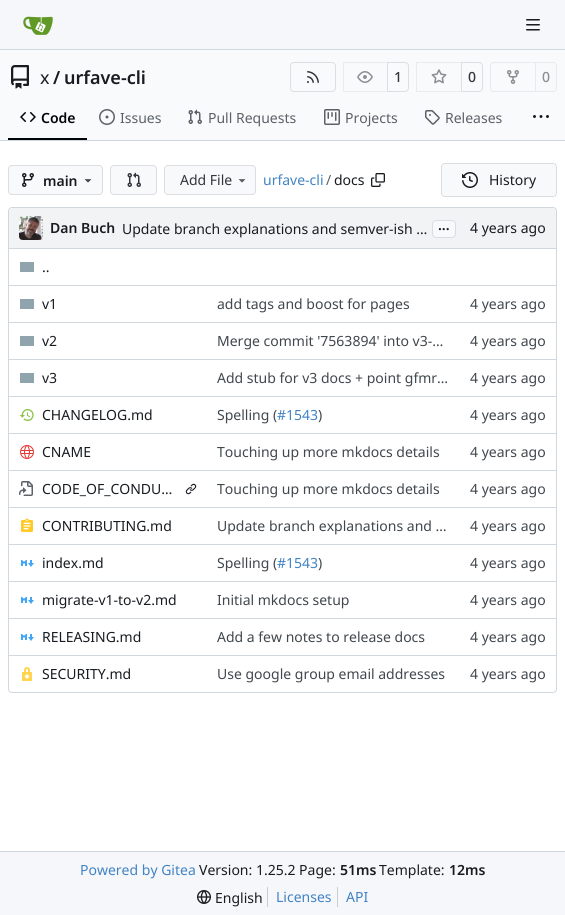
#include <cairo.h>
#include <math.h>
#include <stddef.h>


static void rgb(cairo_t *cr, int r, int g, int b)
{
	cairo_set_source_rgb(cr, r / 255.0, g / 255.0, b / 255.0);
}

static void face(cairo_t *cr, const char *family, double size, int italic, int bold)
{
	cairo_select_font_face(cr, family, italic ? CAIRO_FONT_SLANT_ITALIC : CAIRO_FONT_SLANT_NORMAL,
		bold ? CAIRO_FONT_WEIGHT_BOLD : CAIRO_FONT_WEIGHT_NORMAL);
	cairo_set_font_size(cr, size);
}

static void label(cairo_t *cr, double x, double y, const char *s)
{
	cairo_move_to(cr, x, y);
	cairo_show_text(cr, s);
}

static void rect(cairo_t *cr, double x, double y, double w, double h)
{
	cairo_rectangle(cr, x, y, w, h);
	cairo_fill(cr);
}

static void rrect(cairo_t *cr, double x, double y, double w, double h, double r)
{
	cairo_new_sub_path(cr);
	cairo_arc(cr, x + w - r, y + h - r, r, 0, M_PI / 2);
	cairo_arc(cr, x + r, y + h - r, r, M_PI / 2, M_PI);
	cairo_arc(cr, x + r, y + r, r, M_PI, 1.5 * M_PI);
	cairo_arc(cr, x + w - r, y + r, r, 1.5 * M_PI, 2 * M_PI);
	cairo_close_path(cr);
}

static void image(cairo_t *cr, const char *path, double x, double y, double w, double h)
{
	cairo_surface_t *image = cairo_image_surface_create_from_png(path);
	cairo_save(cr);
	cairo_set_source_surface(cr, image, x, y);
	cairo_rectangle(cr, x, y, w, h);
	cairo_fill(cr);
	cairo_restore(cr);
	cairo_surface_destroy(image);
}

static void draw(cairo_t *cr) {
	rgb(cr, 255, 255, 255);
	cairo_paint(cr);
	rgb(cr, 246, 247, 250);
	rect(cr, 0, 0, 565, 49);
	rgb(cr, 208, 215, 222);
	rect(cr, 0, 49, 565, 1);
	image(cr, "image0.png", 23, 16, 30, 19);
	image(cr, "image1.png", 526, 19, 14, 12);
	rgb(cr, 249, 250, 251);
	rect(cr, 0, 50, 565, 90);
	image(cr, "image2.png", 11, 65, 18, 24);
	face(cr, "Noto Sans", 18, 0, 0);
	rgb(cr, 24, 28, 33);
	label(cr, 40, 84, "x");
	face(cr, "Noto Sans SemiBold", 18, 0, 0);
	label(cr, 53, 84, "/");
	label(cr, 64, 84, "urfave-cli");
	rrect(cr, 290.5, 62.5, 45, 29, 3.5);
	rgb(cr, 221, 222, 225);
	cairo_set_line_width(cr, 1);
	cairo_stroke(cr);
	image(cr, "image3.png", 307, 71, 12, 12);
	cairo_new_path(cr);
	cairo_move_to(cr, 387.5, 62.5);
	cairo_line_to(cr, 405, 62.5);
	cairo_curve_to(cr, 407, 62.5, 408.5, 64, 408.5, 66);
	cairo_line_to(cr, 408.5, 88);
	cairo_curve_to(cr, 408.5, 90, 407, 91.5, 405, 91.5);
	cairo_line_to(cr, 387.5, 91.5);
	cairo_close_path(cr);
	cairo_stroke(cr);
	cairo_set_source_rgba(cr, 0.973, 0.976, 0.984, 0.55);
	cairo_new_path(cr);
	cairo_move_to(cr, 347, 62);
	cairo_line_to(cr, 388, 62);
	cairo_line_to(cr, 388, 92);
	cairo_line_to(cr, 347, 92);
	cairo_curve_to(cr, 345, 92, 343, 90, 343, 88);
	cairo_line_to(cr, 343, 66);
	cairo_curve_to(cr, 343, 64, 345, 62, 347, 62);
	cairo_close_path(cr);
	cairo_fill(cr);
	cairo_rectangle(cr, 343.5, 62.5, 44, 29);
	cairo_set_source_rgba(cr, 0, 0, 0.09, 0.06);
	cairo_stroke(cr);
	image(cr, "image4.png", 357, 71, 16, 12);
	face(cr, "Noto Sans Medium", 14, 0, 0);
	rgb(cr, 48, 54, 59);
	label(cr, 394, 82, "1");
	cairo_new_path(cr);
	cairo_move_to(cr, 461.5, 62.5);
	cairo_line_to(cr, 479, 62.5);
	cairo_curve_to(cr, 481, 62.5, 482.5, 64, 482.5, 66);
	cairo_line_to(cr, 482.5, 88);
	cairo_curve_to(cr, 482.5, 90, 481, 91.5, 479, 91.5);
	cairo_line_to(cr, 461.5, 91.5);
	cairo_close_path(cr);
	rgb(cr, 221, 222, 225);
	cairo_stroke(cr);
	cairo_set_source_rgba(cr, 0.973, 0.976, 0.984, 0.55);
	cairo_new_path(cr);
	cairo_move_to(cr, 420, 62);
	cairo_line_to(cr, 462, 62);
	cairo_line_to(cr, 462, 92);
	cairo_line_to(cr, 420, 92);
	cairo_curve_to(cr, 418, 92, 416, 90, 416, 88);
	cairo_line_to(cr, 416, 66);
	cairo_curve_to(cr, 416, 64, 418, 62, 420, 62);
	cairo_close_path(cr);
	cairo_fill(cr);
	cairo_rectangle(cr, 416.5, 62.5, 45, 29);
	cairo_set_source_rgba(cr, 0, 0, 0.09, 0.06);
	cairo_stroke(cr);
	image(cr, "image5.png", 431, 69, 16, 15);
	rgb(cr, 48, 54, 59);
	label(cr, 468, 82, "0");
	cairo_new_path(cr);
	cairo_move_to(cr, 494, 62.5);
	cairo_line_to(cr, 535.5, 62.5);
	cairo_line_to(cr, 535.5, 91.5);
	cairo_line_to(cr, 494, 91.5);
	cairo_curve_to(cr, 492, 91.5, 490.5, 90, 490.5, 88);
	cairo_line_to(cr, 490.5, 66);
	cairo_curve_to(cr, 490.5, 64, 492, 62.5, 494, 62.5);
	cairo_close_path(cr);
	rgb(cr, 233, 234, 237);
	cairo_stroke(cr);
	image(cr, "image6.png", 507, 70, 12, 14);
	rgb(cr, 248, 249, 251);
	cairo_new_path(cr);
	cairo_move_to(cr, 535.5, 62.5);
	cairo_line_to(cr, 553, 62.5);
	cairo_curve_to(cr, 555, 62.5, 556.5, 64, 556.5, 66);
	cairo_line_to(cr, 556.5, 88);
	cairo_curve_to(cr, 556.5, 90, 555, 91.5, 553, 91.5);
	cairo_line_to(cr, 535.5, 91.5);
	cairo_close_path(cr);
	cairo_fill_preserve(cr);
	rgb(cr, 233, 234, 237);
	cairo_stroke(cr);
	rgb(cr, 138, 142, 145);
	label(cr, 542, 82, "0");
	rgb(cr, 1, 5, 10);
	rect(cr, 8, 138, 79, 2);
	image(cr, "image7.png", 20, 112, 16, 10);
	face(cr, "Noto Sans SemiBold", 14, 0, 0);
	label(cr, 41, 123, "Code");
	image(cr, "image8.png", 99, 109, 16, 16);
	face(cr, "Noto Sans", 14, 0, 0);
	rgb(cr, 91, 97, 103);
	label(cr, 120, 123, "Issues");
	image(cr, "image9.png", 188, 109, 14, 15);
	label(cr, 208, 123, "Pull Requests");
	image(cr, "image10.png", 324, 109, 16, 16);
	label(cr, 345, 123, "Projects");
	image(cr, "image11.png", 425, 110, 15, 15);
	label(cr, 445, 123, "Releases");
	image(cr, "image12.png", 533, 115, 16, 3);
	rgb(cr, 208, 215, 222);
	rect(cr, 0, 140, 565, 1);
	rgb(cr, 248, 249, 251);
	rrect(cr, 8.5, 165.5, 94, 29, 3.5);
	cairo_fill_preserve(cr);
	rgb(cr, 220, 221, 225);
	cairo_stroke(cr);
	image(cr, "image13.png", 22, 173, 12, 14);
	face(cr, "Noto Sans SemiBold", 14, 0, 0);
	rgb(cr, 24, 28, 33);
	label(cr, 43, 186, "main");
	image(cr, "image14.png", 84, 179, 8, 4);
	rgb(cr, 248, 249, 251);
	rrect(cr, 110.5, 165.5, 46, 29, 3.5);
	cairo_fill_preserve(cr);
	rgb(cr, 220, 221, 225);
	cairo_stroke(cr);
	image(cr, "image15.png", 127, 172, 14, 15);
	rgb(cr, 248, 249, 251);
	rrect(cr, 164.5, 165.5, 91, 29, 3.5);
	cairo_fill_preserve(cr);
	rgb(cr, 220, 221, 225);
	cairo_stroke(cr);
	face(cr, "Noto Sans", 14, 0, 0);
	rgb(cr, 48, 54, 59);
	label(cr, 180, 185, "Add File");
	image(cr, "image16.png", 238, 179, 8, 4);
	rgb(cr, 65, 131, 196);
	label(cr, 263, 185, "urfave-cli");
	rgb(cr, 91, 97, 103);
	label(cr, 326, 185, "/");
	rgb(cr, 24, 28, 33);
	label(cr, 334, 185, "docs");
	image(cr, "image17.png", 371, 173, 14, 14);
	rgb(cr, 248, 249, 251);
	rrect(cr, 441.5, 163.5, 115, 33, 3.5);
	cairo_fill_preserve(cr);
	rgb(cr, 220, 221, 225);
	cairo_stroke(cr);
	image(cr, "image18.png", 462, 172, 16, 16);
	rgb(cr, 24, 28, 33);
	label(cr, 489, 185, "History");
	rrect(cr, 8.5, 207.5, 548, 485, 3.5);
	rgb(cr, 208, 215, 222);
	cairo_stroke(cr);
	rgb(cr, 241, 243, 245);
	cairo_new_path(cr);
	cairo_move_to(cr, 13, 208);
	cairo_line_to(cr, 552, 208);
	cairo_curve_to(cr, 554, 208, 556, 210, 556, 212);
	cairo_line_to(cr, 556, 248);
	cairo_line_to(cr, 9, 248);
	cairo_line_to(cr, 9, 212);
	cairo_curve_to(cr, 9, 210, 11, 208, 13, 208);
	cairo_close_path(cr);
	cairo_fill(cr);
	image(cr, "image19.png", 19, 216, 24, 24);
	face(cr, "Noto Sans SemiBold", 14, 0, 0);
	rgb(cr, 24, 28, 33);
	label(cr, 50, 233, "Dan Buch");
	face(cr, "Noto Sans", 14, 0, 0);
	label(cr, 122, 234, "Update branch explanations and semver-ish …");
	rgb(cr, 248, 249, 251);
	rrect(cr, 432.5, 220.5, 23, 17, 3.5);
	cairo_fill_preserve(cr);
	rgb(cr, 219, 220, 225);
	cairo_stroke(cr);
	face(cr, "Noto Sans SemiBold", 14, 0, 0);
	rgb(cr, 24, 28, 33);
	label(cr, 438, 230, "...");
	face(cr, "Noto Sans", 14, 0, 0);
	label(cr, 470, 233, "4 years ago");
	rgb(cr, 208, 215, 222);
	rect(cr, 9, 248, 547, 1);
	rgb(cr, 144, 164, 174);
	rect(cr, 20, 262, 14, 10);
	rgb(cr, 24, 28, 33);
	label(cr, 42, 272, "..");
	rgb(cr, 208, 215, 222);
	rect(cr, 9, 285, 451, 1);
	rgb(cr, 144, 164, 174);
	rect(cr, 20, 299, 14, 10);
	rgb(cr, 24, 28, 33);
	label(cr, 42, 309, "v1");
	rgb(cr, 64, 71, 77);
	label(cr, 217, 309, "add tags and boost for pages");
	rgb(cr, 208, 215, 222);
	rect(cr, 460, 285, 96, 1);
	rgb(cr, 64, 71, 77);
	label(cr, 470, 309, "4 years ago");
	rgb(cr, 208, 215, 222);
	rect(cr, 9, 322, 451, 1);
	rgb(cr, 144, 164, 174);
	rect(cr, 20, 336, 14, 10);
	rgb(cr, 24, 28, 33);
	label(cr, 42, 346, "v2");
	rgb(cr, 64, 71, 77);
	label(cr, 217, 346, "Merge commit '7563894' into v3-…");
	rgb(cr, 208, 215, 222);
	rect(cr, 460, 322, 96, 1);
	rgb(cr, 64, 71, 77);
	label(cr, 470, 346, "4 years ago");
	rgb(cr, 208, 215, 222);
	rect(cr, 9, 359, 451, 1);
	rgb(cr, 144, 164, 174);
	rect(cr, 20, 373, 14, 10);
	rgb(cr, 24, 28, 33);
	label(cr, 42, 383, "v3");
	rgb(cr, 64, 71, 77);
	label(cr, 217, 383, "Add stub for v3 docs + point gfmr…");
	rgb(cr, 208, 215, 222);
	rect(cr, 460, 359, 96, 1);
	rgb(cr, 64, 71, 77);
	label(cr, 470, 383, "4 years ago");
	rgb(cr, 208, 215, 222);
	rect(cr, 9, 396, 451, 1);
	image(cr, "image20.png", 19, 409, 15, 12);
	rgb(cr, 24, 28, 33);
	label(cr, 42, 420, "CHANGELOG.md");
	rgb(cr, 64, 71, 77);
	label(cr, 217, 420, "Spelling (");
	rgb(cr, 65, 131, 196);
	label(cr, 277, 420, "#1543");
	rgb(cr, 64, 71, 77);
	label(cr, 318, 420, ")");
	rgb(cr, 208, 215, 222);
	rect(cr, 460, 396, 96, 1);
	rgb(cr, 64, 71, 77);
	label(cr, 470, 420, "4 years ago");
	rgb(cr, 208, 215, 222);
	rect(cr, 9, 433, 451, 1);
	image(cr, "image21.png", 20, 445, 14, 14);
	rgb(cr, 24, 28, 33);
	label(cr, 42, 457, "CNAME");
	rgb(cr, 64, 71, 77);
	label(cr, 217, 457, "Touching up more mkdocs details");
	rgb(cr, 208, 215, 222);
	rect(cr, 460, 433, 96, 1);
	rgb(cr, 64, 71, 77);
	label(cr, 470, 457, "4 years ago");
	rgb(cr, 208, 215, 222);
	rect(cr, 9, 470, 451, 1);
	image(cr, "image22.png", 19, 481, 14, 15);
	rgb(cr, 24, 28, 33);
	label(cr, 42, 494, "CODE_OF_CONDU…");
	image(cr, "image23.png", 185, 483, 12, 12);
	rgb(cr, 64, 71, 77);
	label(cr, 217, 494, "Touching up more mkdocs details");
	rgb(cr, 208, 215, 222);
	rect(cr, 460, 470, 96, 1);
	rgb(cr, 64, 71, 77);
	label(cr, 470, 494, "4 years ago");
	rgb(cr, 208, 215, 222);
	rect(cr, 9, 507, 451, 1);
	image(cr, "image24.png", 21, 518, 12, 14);
	rgb(cr, 24, 28, 33);
	label(cr, 42, 531, "CONTRIBUTING.md");
	rgb(cr, 64, 71, 77);
	label(cr, 217, 531, "Update branch explanations and …");
	rgb(cr, 208, 215, 222);
	rect(cr, 460, 507, 96, 1);
	rgb(cr, 64, 71, 77);
	label(cr, 470, 531, "4 years ago");
	rgb(cr, 208, 215, 222);
	rect(cr, 9, 544, 451, 1);
	image(cr, "image25.png", 21, 560, 13, 7);
	rgb(cr, 24, 28, 33);
	label(cr, 42, 568, "index.md");
	rgb(cr, 64, 71, 77);
	label(cr, 217, 568, "Spelling (");
	rgb(cr, 65, 131, 196);
	label(cr, 277, 568, "#1543");
	rgb(cr, 64, 71, 77);
	label(cr, 318, 568, ")");
	rgb(cr, 208, 215, 222);
	rect(cr, 460, 544, 96, 1);
	rgb(cr, 64, 71, 77);
	label(cr, 470, 568, "4 years ago");
	rgb(cr, 208, 215, 222);
	rect(cr, 9, 581, 451, 1);
	image(cr, "image25.png", 21, 597, 13, 7);
	rgb(cr, 24, 28, 33);
	label(cr, 42, 605, "migrate-v1-to-v2.md");
	rgb(cr, 64, 71, 77);
	label(cr, 217, 605, "Initial mkdocs setup");
	rgb(cr, 208, 215, 222);
	rect(cr, 460, 581, 96, 1);
	rgb(cr, 64, 71, 77);
	label(cr, 470, 605, "4 years ago");
	rgb(cr, 208, 215, 222);
	rect(cr, 9, 618, 451, 1);
	image(cr, "image25.png", 21, 634, 13, 7);
	rgb(cr, 24, 28, 33);
	label(cr, 42, 642, "RELEASING.md");
	rgb(cr, 64, 71, 77);
	label(cr, 217, 642, "Add a few notes to release docs");
	rgb(cr, 208, 215, 222);
	rect(cr, 460, 618, 96, 1);
	rgb(cr, 64, 71, 77);
	label(cr, 470, 642, "4 years ago");
	rgb(cr, 208, 215, 222);
	rect(cr, 9, 655, 451, 1);
	image(cr, "image26.png", 22, 667, 10, 14);
	rgb(cr, 24, 28, 33);
	label(cr, 42, 679, "SECURITY.md");
	rgb(cr, 64, 71, 77);
	label(cr, 217, 679, "Use google group email addresses");
	rgb(cr, 208, 215, 222);
	rect(cr, 460, 655, 96, 1);
	rgb(cr, 64, 71, 77);
	label(cr, 470, 679, "4 years ago");
	rgb(cr, 246, 247, 250);
	rect(cr, 0, 852, 565, 63);
	rgb(cr, 208, 215, 222);
	rect(cr, 0, 851, 565, 1);
	rgb(cr, 65, 131, 196);
	label(cr, 80, 875, "Powered by Gitea");
	rgb(cr, 24, 28, 33);
	label(cr, 199, 875, "Version: 1.25.2 Page:");
	face(cr, "Noto Sans SemiBold", 14, 0, 0);
	label(cr, 340, 875, "51ms");
	face(cr, "Noto Sans", 14, 0, 0);
	label(cr, 379, 875, "Template:");
	face(cr, "Noto Sans SemiBold", 14, 0, 0);
	label(cr, 449, 875, "12ms");
	image(cr, "image27.png", 197, 890, 14, 14);
	face(cr, "Noto Sans", 14, 0, 0);
	label(cr, 215, 903, "English");
	rgb(cr, 199, 206, 213);
	rect(cr, 267, 887, 1, 20);
	rgb(cr, 65, 131, 196);
	label(cr, 276, 902, "Licenses");
	rgb(cr, 199, 206, 213);
	rect(cr, 337, 887, 1, 20);
	rgb(cr, 65, 131, 196);
	label(cr, 346, 902, "API");
}

int main(void) {
	cairo_surface_t *surface = cairo_image_surface_create(CAIRO_FORMAT_RGB24, 565, 915);
	cairo_t *cr = cairo_create(surface);
	cairo_font_options_t *options = cairo_font_options_create();
	cairo_font_options_set_hint_metrics(options, CAIRO_HINT_METRICS_OFF);
	cairo_font_options_set_hint_style(options, CAIRO_HINT_STYLE_NONE);
	cairo_set_font_options(cr, options);
	cairo_set_miter_limit(cr, 4);
	draw(cr);
	cairo_surface_write_to_png(surface, "render.png");
	cairo_font_options_destroy(options);
	cairo_destroy(cr);
	cairo_surface_destroy(surface);
	return 0;
}
